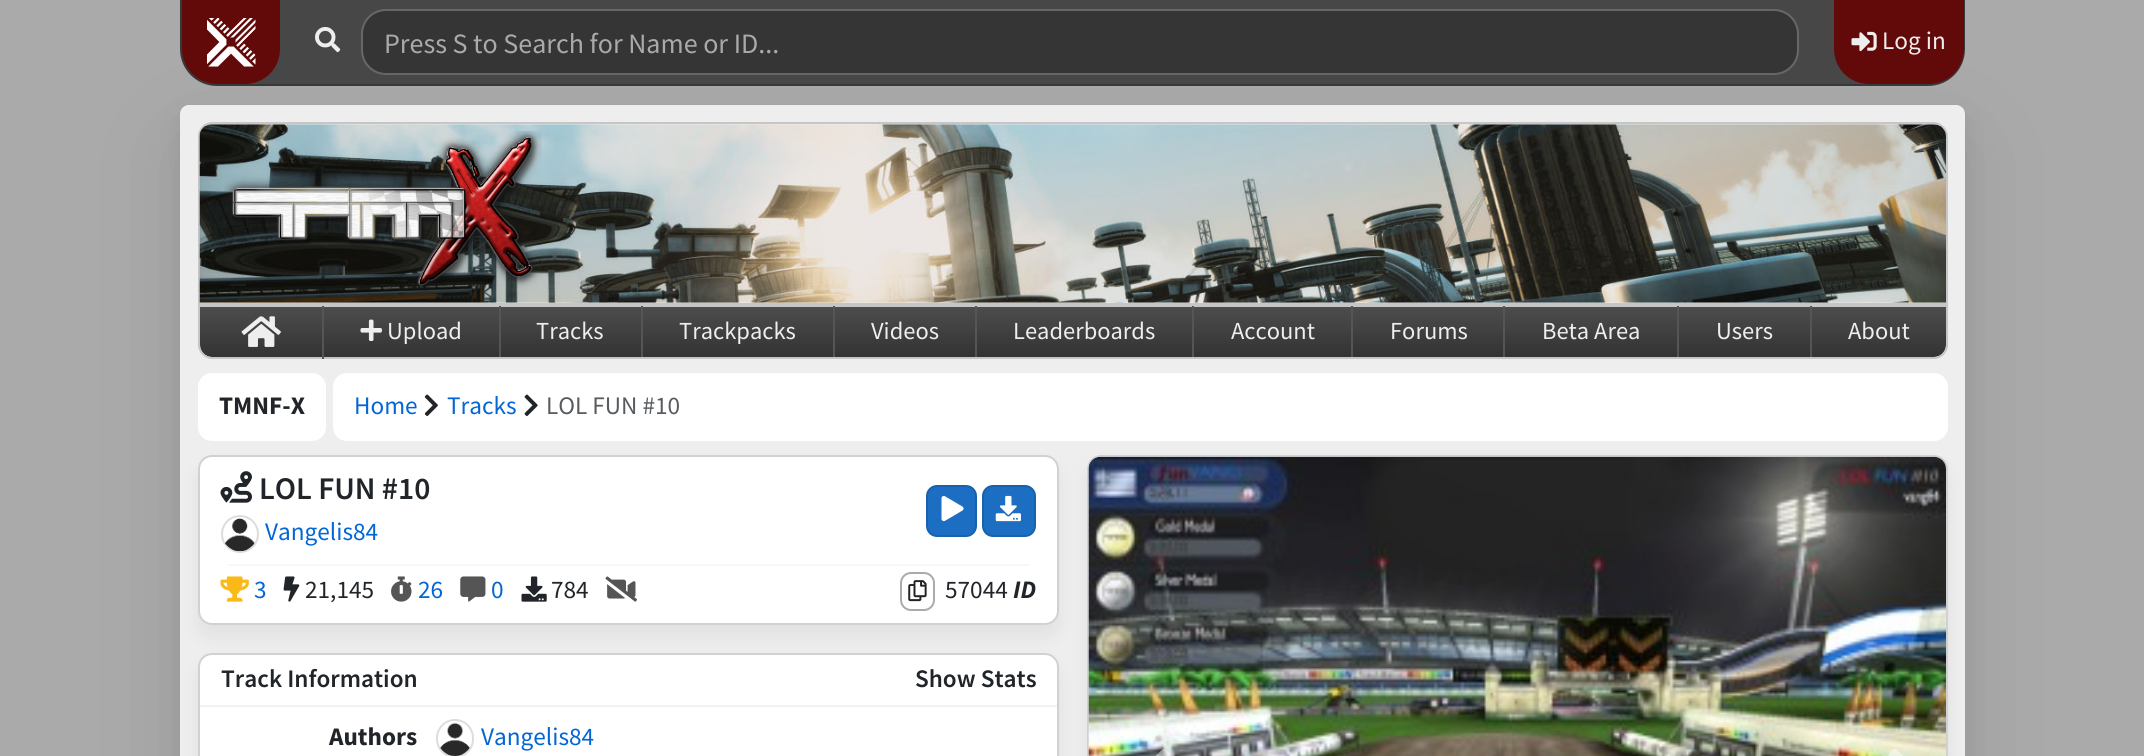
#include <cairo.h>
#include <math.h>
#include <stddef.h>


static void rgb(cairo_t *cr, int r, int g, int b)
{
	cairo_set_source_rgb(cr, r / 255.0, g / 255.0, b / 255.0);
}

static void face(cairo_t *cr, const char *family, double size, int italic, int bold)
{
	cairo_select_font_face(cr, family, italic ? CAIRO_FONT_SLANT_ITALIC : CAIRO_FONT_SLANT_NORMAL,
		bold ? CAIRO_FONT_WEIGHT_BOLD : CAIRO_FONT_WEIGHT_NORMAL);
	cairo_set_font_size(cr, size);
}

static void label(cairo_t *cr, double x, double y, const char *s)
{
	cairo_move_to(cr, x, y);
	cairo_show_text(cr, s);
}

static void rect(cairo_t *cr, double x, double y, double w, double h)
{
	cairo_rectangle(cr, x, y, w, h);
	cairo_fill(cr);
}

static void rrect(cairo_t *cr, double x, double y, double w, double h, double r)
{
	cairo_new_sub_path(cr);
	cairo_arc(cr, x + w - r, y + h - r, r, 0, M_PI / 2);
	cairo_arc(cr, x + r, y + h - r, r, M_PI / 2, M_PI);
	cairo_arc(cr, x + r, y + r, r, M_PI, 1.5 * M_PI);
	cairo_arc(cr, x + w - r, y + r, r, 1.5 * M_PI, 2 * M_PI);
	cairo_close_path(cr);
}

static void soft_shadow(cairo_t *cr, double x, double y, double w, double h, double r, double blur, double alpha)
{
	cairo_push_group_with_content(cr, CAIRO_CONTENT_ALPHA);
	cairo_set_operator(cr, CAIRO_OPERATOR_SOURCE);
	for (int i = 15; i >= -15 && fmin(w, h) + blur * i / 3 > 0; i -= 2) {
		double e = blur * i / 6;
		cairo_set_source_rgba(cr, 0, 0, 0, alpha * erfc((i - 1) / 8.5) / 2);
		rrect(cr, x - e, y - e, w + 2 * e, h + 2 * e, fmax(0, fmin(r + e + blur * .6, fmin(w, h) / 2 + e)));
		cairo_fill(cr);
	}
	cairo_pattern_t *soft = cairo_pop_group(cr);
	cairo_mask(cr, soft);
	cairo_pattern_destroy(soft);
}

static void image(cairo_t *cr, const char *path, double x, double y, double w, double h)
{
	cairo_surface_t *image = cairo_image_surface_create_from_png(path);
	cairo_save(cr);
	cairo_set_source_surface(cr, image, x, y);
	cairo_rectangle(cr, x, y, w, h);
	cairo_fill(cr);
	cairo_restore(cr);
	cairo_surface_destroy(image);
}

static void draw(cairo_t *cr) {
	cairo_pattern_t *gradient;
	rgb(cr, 170, 170, 170);
	cairo_paint(cr);
	rgb(cr, 0, 0, 0);
	soft_shadow(cr, 180, 140, 1785, 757, 9, 44, 0.1);
	soft_shadow(cr, 180, 116, 1785, 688, 9, 13, 0.07);
	rgb(cr, 55, 57, 56);
	cairo_new_path(cr);
	cairo_move_to(cr, 180, 0);
	cairo_line_to(cr, 1965, 0);
	cairo_line_to(cr, 1965, 49);
	cairo_curve_to(cr, 1965, 69.5, 1948.5, 86, 1928, 86);
	cairo_line_to(cr, 217, 86);
	cairo_curve_to(cr, 196.5, 86, 180, 69.5, 180, 49);
	cairo_close_path(cr);
	cairo_fill(cr);
	rgb(cr, 71, 71, 71);
	cairo_new_path(cr);
	cairo_move_to(cr, 182, 0);
	cairo_line_to(cr, 1964, 0);
	cairo_line_to(cr, 1964, 49);
	cairo_curve_to(cr, 1964, 68.5, 1948.5, 84, 1929, 84);
	cairo_line_to(cr, 217, 84);
	cairo_curve_to(cr, 197.5, 84, 182, 68.5, 182, 49);
	cairo_close_path(cr);
	cairo_fill(cr);
	rgb(cr, 98, 9, 9);
	cairo_new_path(cr);
	cairo_move_to(cr, 182, 0);
	cairo_line_to(cr, 280, 0);
	cairo_line_to(cr, 280, 49);
	cairo_curve_to(cr, 280, 68.5, 264.5, 84, 245, 84);
	cairo_line_to(cr, 217, 84);
	cairo_curve_to(cr, 197.5, 84, 182, 68.5, 182, 49);
	cairo_close_path(cr);
	cairo_fill(cr);
	image(cr, "image0.png", 207, 18, 49, 49);
	image(cr, "image1.png", 315, 27, 26, 26);
	rgb(cr, 53, 53, 53);
	rrect(cr, 362, 10, 1436, 64, 24);
	cairo_fill_preserve(cr);
	rgb(cr, 103, 103, 103);
	cairo_stroke(cr);
	face(cr, "Source Sans Pro", 28, 0, 0);
	rgb(cr, 170, 170, 170);
	label(cr, 384, 53, "Press S to Search for Name or ID...");
	rgb(cr, 98, 9, 9);
	cairo_new_path(cr);
	cairo_move_to(cr, 1834, 0);
	cairo_line_to(cr, 1964, 0);
	cairo_line_to(cr, 1964, 49);
	cairo_curve_to(cr, 1964, 68.5, 1948.5, 84, 1929, 84);
	cairo_line_to(cr, 1869, 84);
	cairo_curve_to(cr, 1849.5, 84, 1834, 68.5, 1834, 49);
	cairo_close_path(cr);
	cairo_fill(cr);
	image(cr, "image2.png", 1851, 31, 26, 21);
	face(cr, "Source Sans Pro", 25.25, 0, 0);
	rgb(cr, 238, 238, 238);
	label(cr, 1882, 49, "Log in");
	rrect(cr, 180, 105, 1785, 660, 9);
	cairo_fill(cr);
	rgb(cr, 198, 198, 198);
	cairo_set_fill_rule(cr, CAIRO_FILL_RULE_EVEN_ODD);
	cairo_new_path(cr);
	cairo_move_to(cr, 212, 122);
	cairo_line_to(cr, 1934, 122);
	cairo_curve_to(cr, 1941, 122, 1948, 129, 1948, 136);
	cairo_line_to(cr, 1948, 303);
	cairo_line_to(cr, 198, 303);
	cairo_line_to(cr, 198, 136);
	cairo_curve_to(cr, 198, 129, 204, 122, 212, 122);
	cairo_close_path(cr);
	cairo_move_to(cr, 212, 124);
	cairo_line_to(cr, 1934, 124);
	cairo_curve_to(cr, 1941, 124, 1946, 130, 1946, 136);
	cairo_line_to(cr, 1946, 303);
	cairo_line_to(cr, 200, 303);
	cairo_line_to(cr, 200, 136);
	cairo_curve_to(cr, 200, 130, 205, 124, 212, 124);
	cairo_close_path(cr);
	cairo_fill(cr);
	image(cr, "image3.png", 199, 124, 1747, 179);
	image(cr, "image4.png", 224, 131, 318, 161);
	gradient = cairo_pattern_create_linear(1073, 357, 1073, 306);
	cairo_pattern_add_color_stop_rgba(gradient, 0, 0.2, 0.2, 0.2, 1);
	cairo_pattern_add_color_stop_rgba(gradient, 1, 0.302, 0.302, 0.302, 1);
	cairo_set_source(cr, gradient);
	cairo_pattern_destroy(gradient);
	cairo_new_path(cr);
	cairo_move_to(cr, 200, 306);
	cairo_line_to(cr, 1946, 306);
	cairo_line_to(cr, 1946, 345);
	cairo_curve_to(cr, 1946, 351.5, 1940.5, 357, 1934, 357);
	cairo_line_to(cr, 212, 357);
	cairo_curve_to(cr, 205.5, 357, 200, 351.5, 200, 345);
	cairo_close_path(cr);
	cairo_fill(cr);
	cairo_new_path(cr);
	cairo_move_to(cr, 199, 304);
	cairo_line_to(cr, 1947, 304);
	cairo_line_to(cr, 1947, 345);
	cairo_curve_to(cr, 1947, 352, 1941, 358, 1934, 358);
	cairo_line_to(cr, 212, 358);
	cairo_curve_to(cr, 205, 358, 199, 352, 199, 345);
	cairo_close_path(cr);
	rgb(cr, 198, 198, 198);
	cairo_stroke(cr);
	rect(cr, 198, 305, 1750, 2);
	rgb(cr, 85, 85, 85);
	rect(cr, 322, 306, 2, 53);
	image(cr, "image5.png", 241, 316, 40, 31);
	rect(cr, 499, 306, 2, 51);
	image(cr, "image6.png", 360, 319, 22, 22);
	face(cr, "Source Sans Pro", 24.5, 0, 0);
	rgb(cr, 238, 238, 238);
	label(cr, 387, 339, "Upload");
	rgb(cr, 85, 85, 85);
	rect(cr, 641, 306, 2, 51);
	rgb(cr, 238, 238, 238);
	label(cr, 536, 339, "Tracks");
	rgb(cr, 85, 85, 85);
	rect(cr, 833, 306, 2, 51);
	rgb(cr, 238, 238, 238);
	label(cr, 679, 339, "Trackpacks");
	rgb(cr, 85, 85, 85);
	rect(cr, 975, 306, 2, 51);
	rgb(cr, 238, 238, 238);
	label(cr, 871, 339, "Videos");
	rgb(cr, 85, 85, 85);
	rect(cr, 1192, 306, 2, 51);
	rgb(cr, 238, 238, 238);
	label(cr, 1013, 339, "Leaderboards");
	rgb(cr, 85, 85, 85);
	rect(cr, 1351, 306, 2, 51);
	rgb(cr, 238, 238, 238);
	label(cr, 1231, 339, "Account");
	rgb(cr, 85, 85, 85);
	rect(cr, 1503, 306, 2, 51);
	rgb(cr, 238, 238, 238);
	label(cr, 1390, 339, "Forums");
	rgb(cr, 85, 85, 85);
	rect(cr, 1677, 306, 2, 51);
	rgb(cr, 238, 238, 238);
	label(cr, 1542, 339, "Beta Area");
	rgb(cr, 85, 85, 85);
	rect(cr, 1810, 306, 2, 51);
	rgb(cr, 238, 238, 238);
	label(cr, 1716, 339, "Users");
	label(cr, 1848, 339, "About");
	rgb(cr, 255, 255, 255);
	rrect(cr, 198, 373, 128, 68, 14);
	cairo_fill(cr);
	face(cr, "Source Sans Pro", 25.25, 0, 1);
	rgb(cr, 33, 37, 41);
	label(cr, 219, 414, "TMNF-X");
	rgb(cr, 255, 255, 255);
	rrect(cr, 333, 373, 1615, 68, 14);
	cairo_fill(cr);
	face(cr, "Source Sans Pro", 25.25, 0, 0);
	rgb(cr, 3, 102, 214);
	label(cr, 354, 414, "Home");
	image(cr, "image7.png", 424, 394, 14, 22);
	label(cr, 447, 414, "Tracks");
	image(cr, "image8.png", 524, 394, 14, 22);
	rgb(cr, 89, 92, 95);
	label(cr, 546, 414, "LOL FUN #10");
	rgb(cr, 0, 0, 0);
	soft_shadow(cr, 198, 467, 861, 170, 14, 9.5, 0.06);
	rgb(cr, 255, 255, 255);
	rrect(cr, 198, 455, 861, 170, 14);
	cairo_fill(cr);
	rrect(cr, 199, 456, 859, 168, 13);
	cairo_set_source_rgba(cr, 0, 0, 0, 0.18);
	cairo_stroke(cr);
	image(cr, "image9.png", 220, 471, 32, 32);
	face(cr, "Source Sans Pro SemiBold", 31.5, 0, 0);
	rgb(cr, 33, 37, 41);
	label(cr, 259, 499, "LOL FUN #10");
	cairo_new_path(cr);
	cairo_arc(cr, 240, 534, 18, 0, 2 * M_PI);
	rgb(cr, 221, 221, 221);
	cairo_stroke(cr);
	image(cr, "image10.png", 225, 518, 30, 34);
	face(cr, "Source Sans Pro", 25.25, 0, 0);
	rgb(cr, 3, 102, 214);
	label(cr, 265, 540, "Vangelis84");
	rgb(cr, 27, 110, 194);
	rrect(cr, 927, 486, 49, 50, 10);
	cairo_fill_preserve(cr);
	rgb(cr, 24, 97, 172);
	cairo_stroke(cr);
	image(cr, "image11.png", 941, 495, 23, 27);
	rgb(cr, 27, 110, 194);
	rrect(cr, 983, 486, 52, 50, 10);
	cairo_fill_preserve(cr);
	rgb(cr, 24, 97, 172);
	cairo_stroke(cr);
	image(cr, "image12.png", 995, 495, 26, 27);
	rgb(cr, 247, 247, 247);
	rect(cr, 228, 564, 801, 2);
	image(cr, "image13.png", 220, 576, 29, 26);
	rgb(cr, 3, 102, 214);
	label(cr, 254, 598, "3");
	image(cr, "image14.png", 283, 576, 17, 26);
	rgb(cr, 33, 37, 41);
	label(cr, 305, 598, "21,145");
	image(cr, "image15.png", 391, 576, 21, 26);
	rgb(cr, 3, 102, 214);
	label(cr, 418, 598, "26");
	image(cr, "image16.png", 460, 576, 26, 26);
	label(cr, 491, 598, "0");
	image(cr, "image17.png", 521, 576, 26, 26);
	rgb(cr, 33, 37, 41);
	label(cr, 551, 598, "784");
	image(cr, "image18.png", 605, 576, 32, 26);
	rrect(cr, 901, 573, 33, 37, 10);
	rgb(cr, 170, 170, 170);
	cairo_stroke(cr);
	image(cr, "image19.png", 908, 580, 19, 22);
	rgb(cr, 33, 37, 41);
	label(cr, 945, 598, "57044");
	face(cr, "Source Sans Pro", 25.25, 1, 1);
	label(cr, 1013, 598, "ID");
	rgb(cr, 0, 0, 0);
	soft_shadow(cr, 198, 665, 861, 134, 14, 9.5, 0.06);
	rgb(cr, 255, 255, 255);
	rrect(cr, 198, 653, 861, 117, 14);
	cairo_fill(cr);
	rrect(cr, 199, 654, 859, 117, 13);
	cairo_set_source_rgba(cr, 0, 0, 0, 0.18);
	cairo_stroke(cr);
	rgb(cr, 242, 242, 242);
	rect(cr, 200, 705, 857, 2);
	face(cr, "Source Sans Pro SemiBold", 25.25, 0, 0);
	rgb(cr, 33, 37, 41);
	label(cr, 221, 687, "Track Information");
	label(cr, 915, 687, "Show Stats");
	face(cr, "Source Sans Pro", 25.25, 0, 1);
	label(cr, 329, 745, "Authors");
	rrect(cr, 437, 720, 36, 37, 18);
	rgb(cr, 221, 221, 221);
	cairo_stroke(cr);
	image(cr, "image20.png", 440, 722, 30, 34);
	face(cr, "Source Sans Pro", 25.25, 0, 0);
	rgb(cr, 3, 102, 214);
	label(cr, 481, 745, "Vangelis84");
	rgb(cr, 0, 0, 0);
	soft_shadow(cr, 1087, 467, 861, 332, 14, 9.5, 0.06);
	rgb(cr, 255, 255, 255);
	rrect(cr, 1087, 455, 861, 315, 14);
	cairo_fill(cr);
	rrect(cr, 1088, 456, 859, 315, 13);
	cairo_set_source_rgba(cr, 0, 0, 0, 0.18);
	cairo_stroke(cr);
	image(cr, "image21.png", 1088, 456, 858, 300);
	image(cr, "image22.png", 1156, 749, 15, 7);
	image(cr, "image23.png", 1888, 749, 15, 7);
}

int main(void) {
	cairo_surface_t *surface = cairo_image_surface_create(CAIRO_FORMAT_RGB24, 2144, 756);
	cairo_t *cr = cairo_create(surface);
	cairo_font_options_t *options = cairo_font_options_create();
	cairo_font_options_set_hint_metrics(options, CAIRO_HINT_METRICS_OFF);
	cairo_font_options_set_hint_style(options, CAIRO_HINT_STYLE_NONE);
	cairo_set_font_options(cr, options);
	cairo_set_miter_limit(cr, 4);
	draw(cr);
	cairo_surface_write_to_png(surface, "render.png");
	cairo_font_options_destroy(options);
	cairo_destroy(cr);
	cairo_surface_destroy(surface);
	return 0;
}
